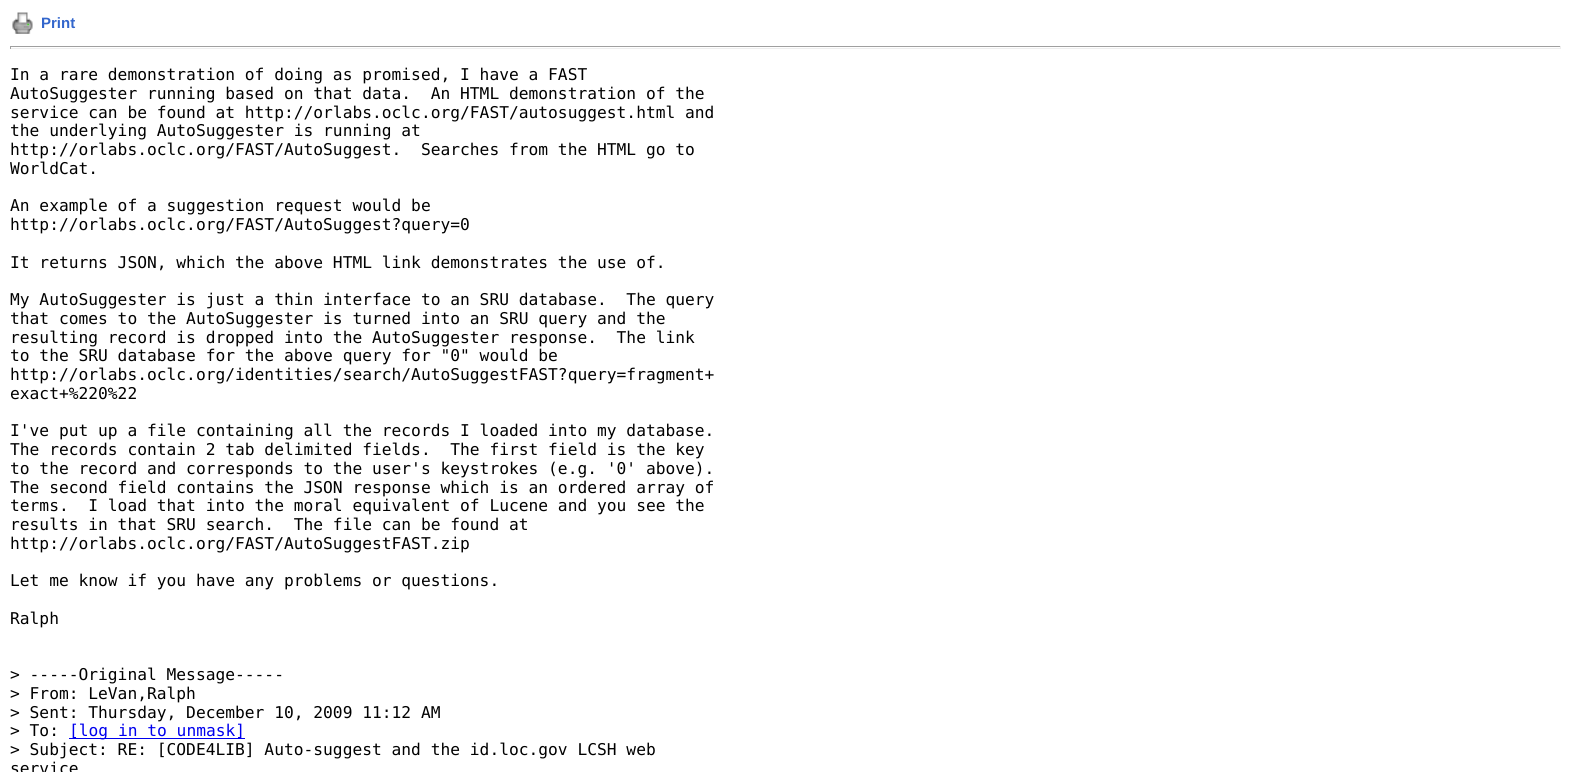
#include <cairo.h>
#include <math.h>
#include <stddef.h>


static void rgb(cairo_t *cr, int r, int g, int b)
{
	cairo_set_source_rgb(cr, r / 255.0, g / 255.0, b / 255.0);
}

static void face(cairo_t *cr, const char *family, double size, int italic, int bold)
{
	cairo_select_font_face(cr, family, italic ? CAIRO_FONT_SLANT_ITALIC : CAIRO_FONT_SLANT_NORMAL,
		bold ? CAIRO_FONT_WEIGHT_BOLD : CAIRO_FONT_WEIGHT_NORMAL);
	cairo_set_font_size(cr, size);
}

static void label(cairo_t *cr, double x, double y, const char *s)
{
	cairo_move_to(cr, x, y);
	cairo_show_text(cr, s);
}

static void rect(cairo_t *cr, double x, double y, double w, double h)
{
	cairo_rectangle(cr, x, y, w, h);
	cairo_fill(cr);
}

static void image(cairo_t *cr, const char *path, double x, double y, double w, double h)
{
	cairo_surface_t *image = cairo_image_surface_create_from_png(path);
	cairo_save(cr);
	cairo_set_source_surface(cr, image, x, y);
	cairo_rectangle(cr, x, y, w, h);
	cairo_fill(cr);
	cairo_restore(cr);
	cairo_surface_destroy(image);
}

static void draw(cairo_t *cr) {
	rgb(cr, 255, 255, 255);
	cairo_paint(cr);
	image(cr, "image0.png", 12, 12, 21, 22);
	face(cr, "Liberation Sans", 15, 0, 1);
	rgb(cr, 51, 102, 204);
	label(cr, 41, 28, "Print");
	rgb(cr, 159, 159, 159);
	rect(cr, 10, 46, 1551, 1);
	rgb(cr, 238, 238, 238);
	rect(cr, 1560, 46, 1, 3);
	rect(cr, 10, 48, 1551, 1);
	rgb(cr, 159, 159, 159);
	rect(cr, 10, 46, 1, 3);
	face(cr, "DejaVu Sans Mono", 16.25, 0, 0);
	rgb(cr, 0, 0, 0);
	label(cr, 10, 80, "In a rare demonstration of doing as promised, I have a FAST");
	label(cr, 10, 99, "AutoSuggester running based on that data.  An HTML demonstration of the");
	label(cr, 10, 118, "service can be found at http://orlabs.oclc.org/FAST/autosuggest.html and");
	label(cr, 10, 136, "the underlying AutoSuggester is running at");
	label(cr, 10, 155, "http://orlabs.oclc.org/FAST/AutoSuggest.  Searches from the HTML go to");
	label(cr, 10, 174, "WorldCat.");
	label(cr, 10, 211, "An example of a suggestion request would be");
	label(cr, 10, 230, "http://orlabs.oclc.org/FAST/AutoSuggest?query=0");
	label(cr, 10, 268, "It returns JSON, which the above HTML link demonstrates the use of.");
	label(cr, 10, 305, "My AutoSuggester is just a thin interface to an SRU database.  The query");
	label(cr, 10, 324, "that comes to the AutoSuggester is turned into an SRU query and the");
	label(cr, 10, 343, "resulting record is dropped into the AutoSuggester response.  The link");
	label(cr, 10, 361, "to the SRU database for the above query for \"0\" would be");
	label(cr, 10, 380, "http://orlabs.oclc.org/identities/search/AutoSuggestFAST?query=fragment+");
	label(cr, 10, 399, "exact+%220%22");
	label(cr, 10, 436, "I've put up a file containing all the records I loaded into my database.");
	label(cr, 10, 455, "The records contain 2 tab delimited fields.  The first field is the key");
	label(cr, 10, 474, "to the record and corresponds to the user's keystrokes (e.g. '0' above).");
	label(cr, 10, 493, "The second field contains the JSON response which is an ordered array of");
	label(cr, 10, 511, "terms.  I load that into the moral equivalent of Lucene and you see the");
	label(cr, 10, 530, "results in that SRU search.  The file can be found at");
	label(cr, 10, 549, "http://orlabs.oclc.org/FAST/AutoSuggestFAST.zip");
	label(cr, 10, 586, "Let me know if you have any problems or questions.");
	label(cr, 10, 624, "Ralph");
	label(cr, 10, 680, "> -----Original Message-----");
	label(cr, 10, 699, "> From: LeVan,Ralph");
	label(cr, 10, 718, "> Sent: Thursday, December 10, 2009 11:12 AM");
	label(cr, 10, 736, "> To:");
	rgb(cr, 0, 0, 238);
	rect(cr, 69, 738, 176, 1);
	label(cr, 69, 736, "[log in to unmask]");
	rgb(cr, 0, 0, 0);
	label(cr, 10, 755, "> Subject: RE: [CODE4LIB] Auto-suggest and the id.loc.gov LCSH web");
	label(cr, 10, 774, "service");
}

int main(void) {
	cairo_surface_t *surface = cairo_image_surface_create(CAIRO_FORMAT_RGB24, 1571, 772);
	cairo_t *cr = cairo_create(surface);
	cairo_font_options_t *options = cairo_font_options_create();
	cairo_font_options_set_hint_metrics(options, CAIRO_HINT_METRICS_OFF);
	cairo_font_options_set_hint_style(options, CAIRO_HINT_STYLE_NONE);
	cairo_set_font_options(cr, options);
	cairo_set_miter_limit(cr, 4);
	draw(cr);
	cairo_surface_write_to_png(surface, "render.png");
	cairo_font_options_destroy(options);
	cairo_destroy(cr);
	cairo_surface_destroy(surface);
	return 0;
}
